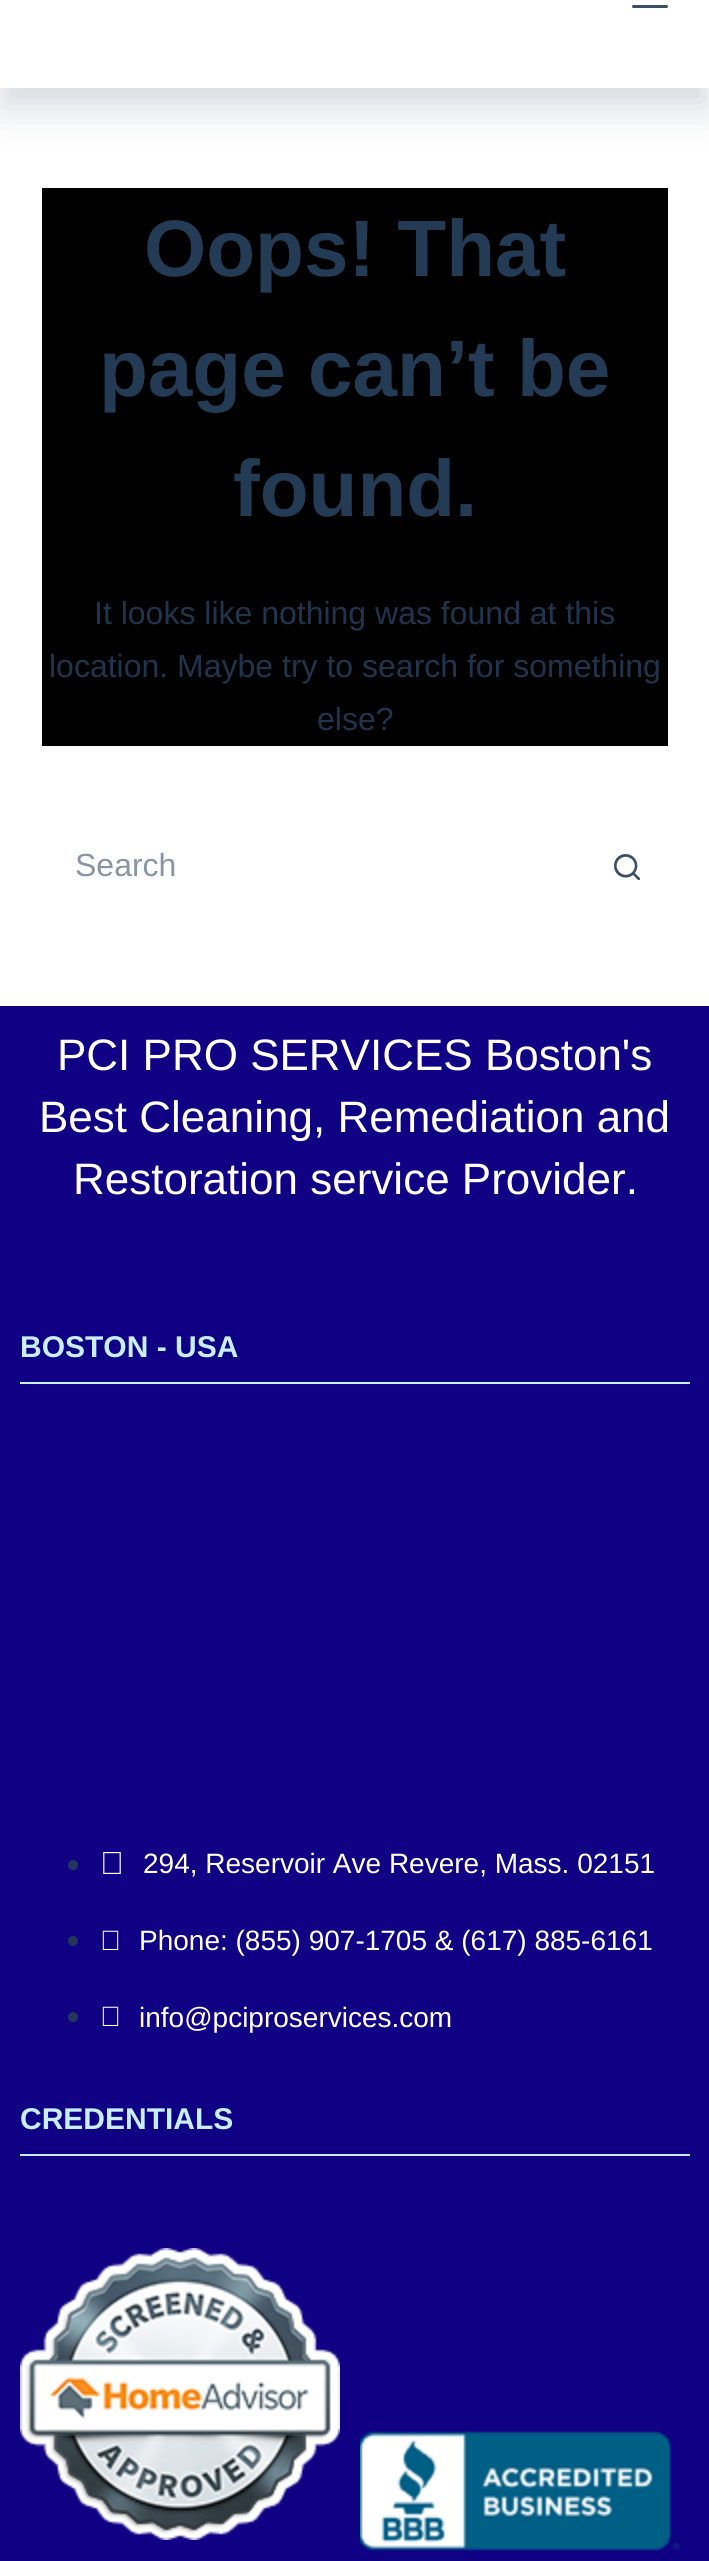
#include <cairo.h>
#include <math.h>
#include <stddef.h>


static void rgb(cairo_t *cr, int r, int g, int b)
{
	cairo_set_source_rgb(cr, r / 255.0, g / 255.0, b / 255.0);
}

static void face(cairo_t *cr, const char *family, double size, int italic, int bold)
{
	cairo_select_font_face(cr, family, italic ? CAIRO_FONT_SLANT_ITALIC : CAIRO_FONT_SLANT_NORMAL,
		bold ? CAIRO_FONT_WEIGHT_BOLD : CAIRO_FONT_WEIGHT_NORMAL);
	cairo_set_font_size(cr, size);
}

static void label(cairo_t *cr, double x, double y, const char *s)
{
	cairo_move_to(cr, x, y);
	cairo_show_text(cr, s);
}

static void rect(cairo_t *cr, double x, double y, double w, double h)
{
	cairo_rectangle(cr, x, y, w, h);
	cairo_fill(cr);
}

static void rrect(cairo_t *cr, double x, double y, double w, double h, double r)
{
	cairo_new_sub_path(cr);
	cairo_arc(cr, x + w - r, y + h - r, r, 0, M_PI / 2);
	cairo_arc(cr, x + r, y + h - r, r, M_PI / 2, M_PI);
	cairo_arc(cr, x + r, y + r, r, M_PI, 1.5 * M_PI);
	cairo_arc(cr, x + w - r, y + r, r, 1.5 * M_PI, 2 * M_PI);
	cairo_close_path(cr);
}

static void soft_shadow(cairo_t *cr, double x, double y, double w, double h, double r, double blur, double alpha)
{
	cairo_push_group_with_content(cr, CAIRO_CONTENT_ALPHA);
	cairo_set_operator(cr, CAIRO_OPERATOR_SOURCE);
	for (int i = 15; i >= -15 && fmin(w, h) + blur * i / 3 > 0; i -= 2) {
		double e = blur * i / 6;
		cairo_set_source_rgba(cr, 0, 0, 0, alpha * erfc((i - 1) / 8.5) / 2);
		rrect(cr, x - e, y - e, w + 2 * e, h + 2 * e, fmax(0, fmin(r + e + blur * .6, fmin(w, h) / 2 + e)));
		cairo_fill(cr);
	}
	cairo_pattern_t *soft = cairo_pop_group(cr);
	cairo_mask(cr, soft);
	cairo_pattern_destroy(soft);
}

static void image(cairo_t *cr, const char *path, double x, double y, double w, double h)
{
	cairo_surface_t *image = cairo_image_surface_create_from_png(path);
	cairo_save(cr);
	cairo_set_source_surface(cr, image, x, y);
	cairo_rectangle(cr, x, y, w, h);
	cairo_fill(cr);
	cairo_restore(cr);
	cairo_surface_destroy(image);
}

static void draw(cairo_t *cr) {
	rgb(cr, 255, 255, 255);
	cairo_paint(cr);
	rgb(cr, 43, 61, 80);
	soft_shadow(cr, 0, -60, 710, 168, 0, 20, 0.19);
	rgb(cr, 255, 255, 255);
	rect(cr, 0, 0, 709, 88);
	rgb(cr, 58, 79, 103);
	rrect(cr, 632, 5, 36, 3, 1.5);
	cairo_fill(cr);
	rgb(cr, 0, 0, 0);
	rect(cr, 42, 188, 626, 558);
	face(cr, "Liberation Sans", 80, 0, 1);
	rgb(cr, 36, 59, 86);
	label(cr, 144, 276, "Oops! That");
	label(cr, 99, 396, "page can’t be");
	label(cr, 233, 516, "found.");
	face(cr, "Liberation Sans", 32, 0, 0);
	rgb(cr, 32, 53, 77);
	label(cr, 94, 624, "It looks like nothing was found at this");
	label(cr, 49, 677, "location. Maybe try to search for something");
	label(cr, 317, 730, "else?");
	rgb(cr, 137, 149, 164);
	label(cr, 75, 876, "Search");
	image(cr, "image0.png", 614, 854, 26, 26);
	rgb(cr, 16, 0, 131);
	rect(cr, 0, 1006, 709, 1555);
	face(cr, "Liberation Sans", 44, 0, 0);
	rgb(cr, 255, 255, 255);
	label(cr, 57, 1070, "PCI PRO SERVICES Boston's");
	label(cr, 39, 1132, "Best Cleaning, Remediation and");
	label(cr, 73, 1194, "Restoration service Provider.");
	rgb(cr, 200, 239, 255);
	rect(cr, 20, 1382, 670, 2);
	face(cr, "Liberation Sans", 30, 0, 1);
	label(cr, 20, 1357, "BOSTON - USA");
	rgb(cr, 34, 53, 91);
	cairo_new_path(cr);
	cairo_arc(cr, 73, 1865, 5, 0, 2 * M_PI);
	cairo_fill(cr);
	image(cr, "image1.png", 103, 1852, 18, 22);
	face(cr, "Liberation Sans", 28, 0, 0);
	rgb(cr, 255, 255, 255);
	label(cr, 143, 1873, "294, Reservoir Ave Revere, Mass. 02151");
	rgb(cr, 34, 53, 91);
	cairo_new_path(cr);
	cairo_arc(cr, 73, 1941, 5, 0, 2 * M_PI);
	cairo_fill(cr);
	image(cr, "image2.png", 102, 1930, 17, 20);
	rgb(cr, 255, 255, 255);
	label(cr, 139, 1950, "Phone: (855) 907-1705 & (617) 885-6161");
	rgb(cr, 34, 53, 91);
	cairo_new_path(cr);
	cairo_arc(cr, 73, 2017, 5, 0, 2 * M_PI);
	cairo_fill(cr);
	image(cr, "image2.png", 102, 2006, 17, 20);
	rgb(cr, 255, 255, 255);
	label(cr, 139, 2027, "info@pciproservices.com");
	rgb(cr, 200, 239, 255);
	rect(cr, 20, 2154, 670, 2);
	face(cr, "Liberation Sans", 30, 0, 1);
	label(cr, 20, 2129, "CREDENTIALS");
	image(cr, "image3.png", 20, 2248, 320, 292);
	image(cr, "image4.png", 360, 2431, 320, 120);
}

int main(void) {
	cairo_surface_t *surface = cairo_image_surface_create(CAIRO_FORMAT_RGB24, 709, 2561);
	cairo_t *cr = cairo_create(surface);
	cairo_font_options_t *options = cairo_font_options_create();
	cairo_font_options_set_hint_metrics(options, CAIRO_HINT_METRICS_OFF);
	cairo_font_options_set_hint_style(options, CAIRO_HINT_STYLE_NONE);
	cairo_set_font_options(cr, options);
	cairo_set_miter_limit(cr, 4);
	draw(cr);
	cairo_surface_write_to_png(surface, "render.png");
	cairo_font_options_destroy(options);
	cairo_destroy(cr);
	cairo_surface_destroy(surface);
	return 0;
}
